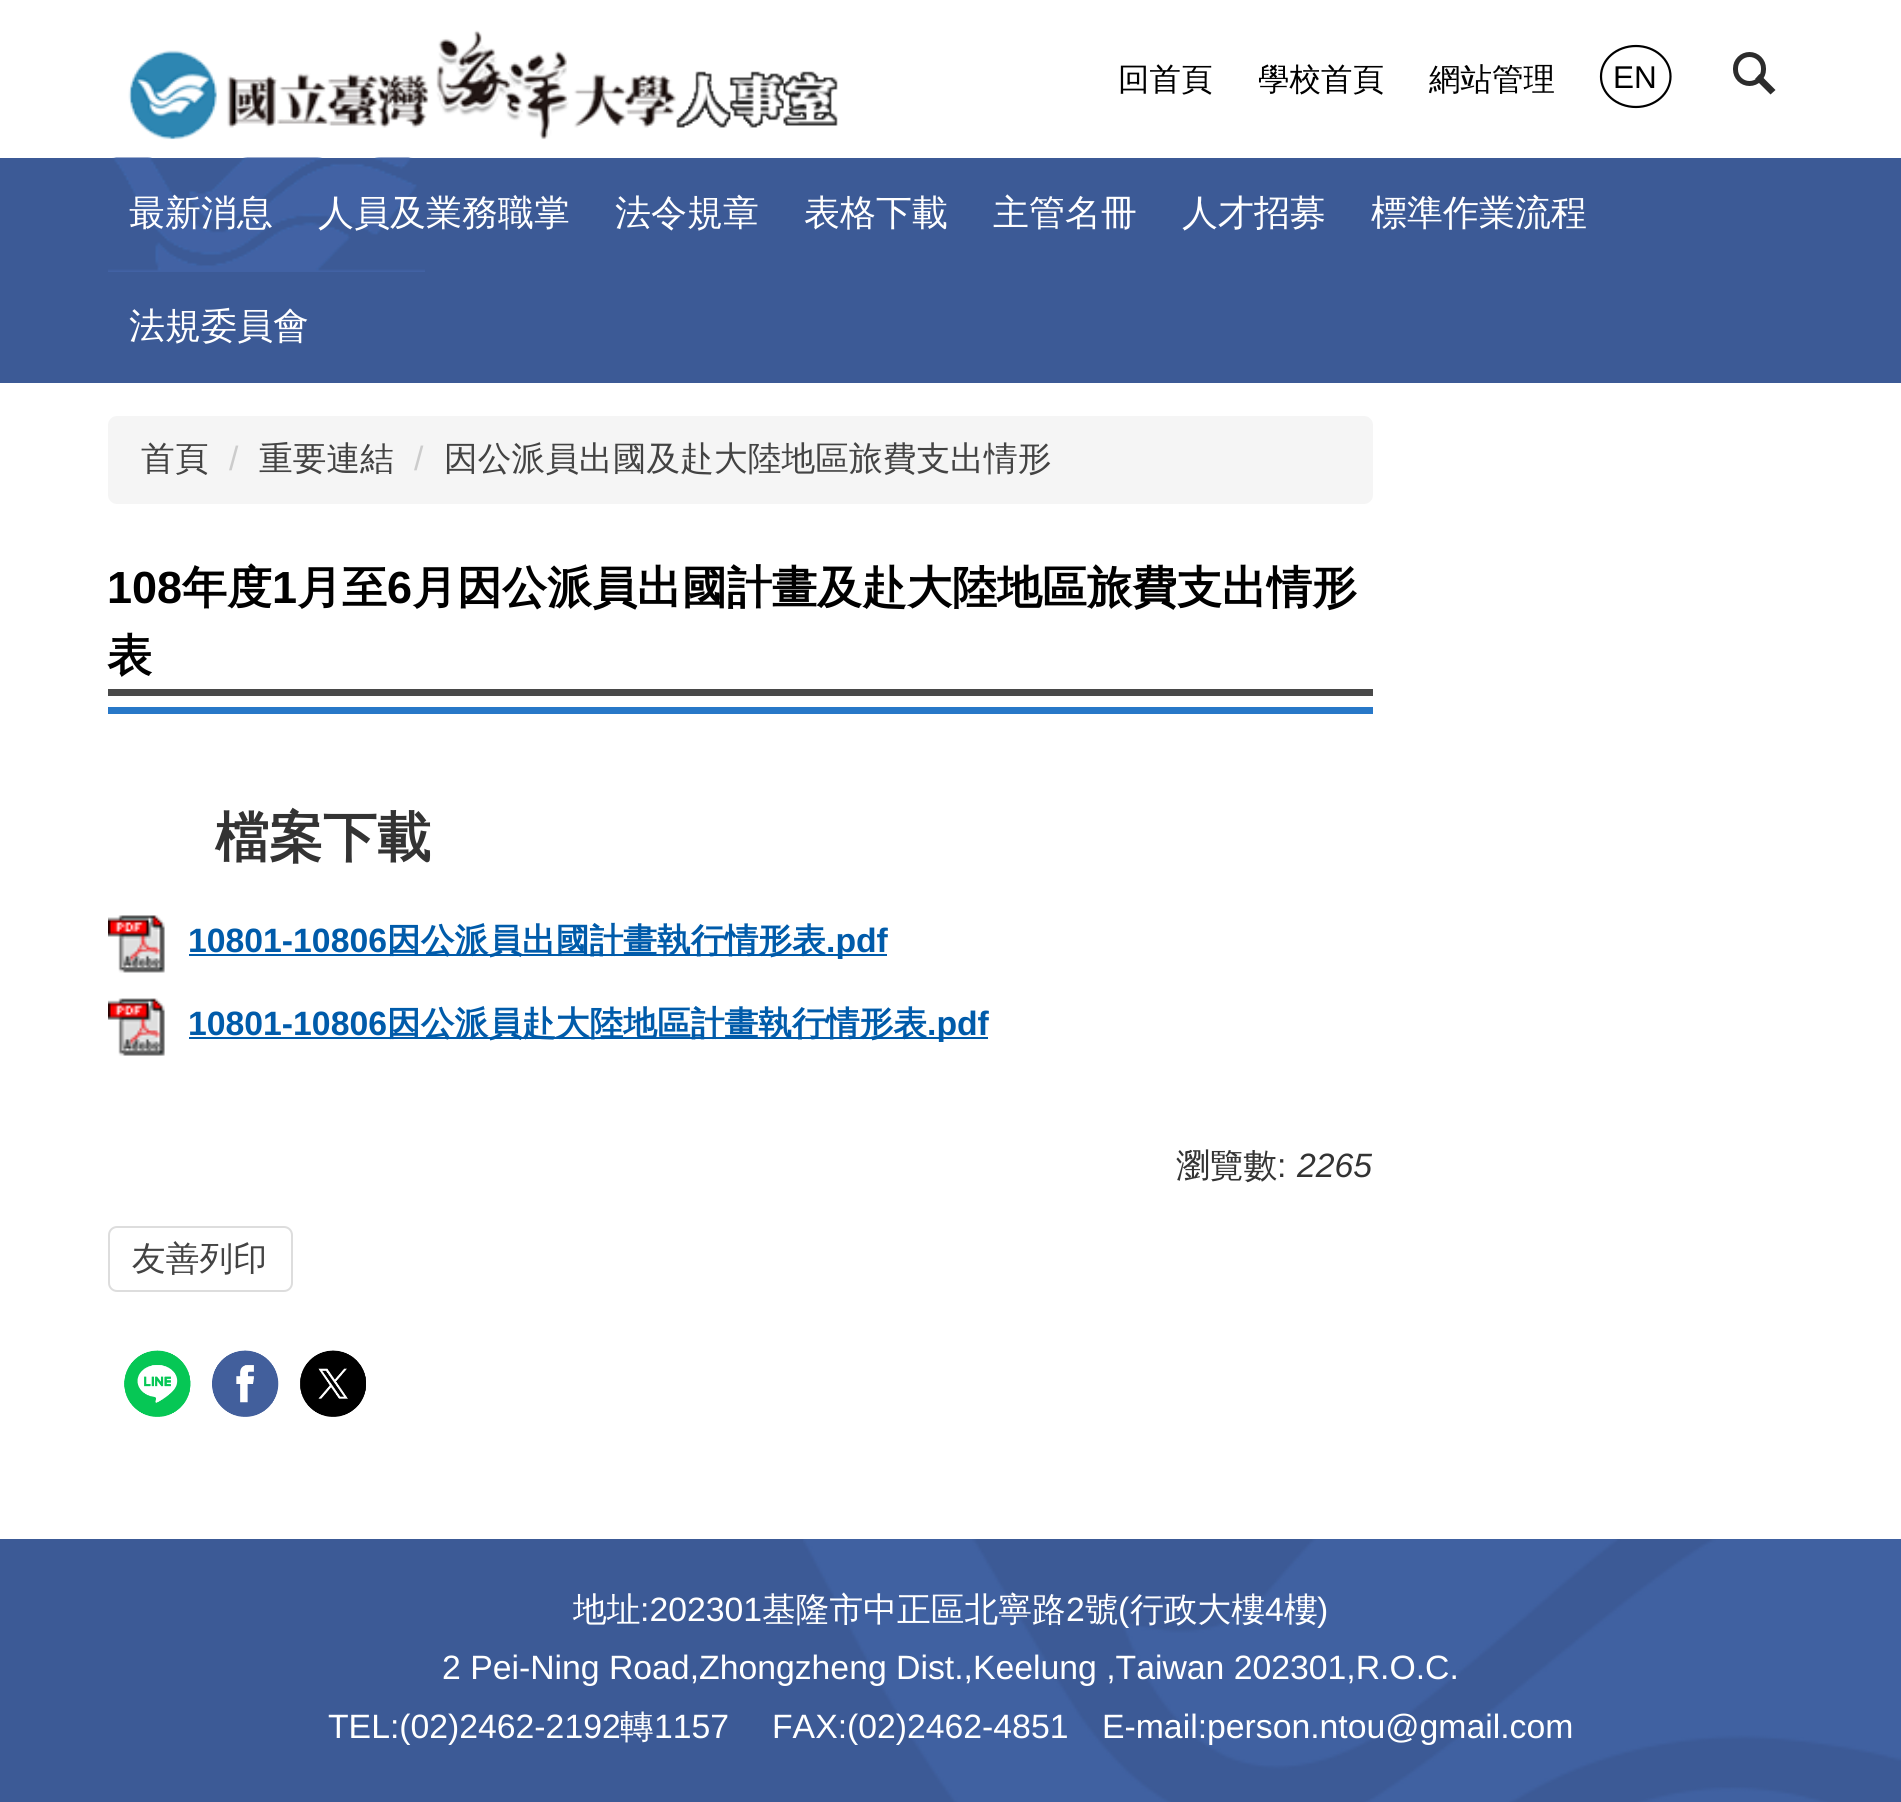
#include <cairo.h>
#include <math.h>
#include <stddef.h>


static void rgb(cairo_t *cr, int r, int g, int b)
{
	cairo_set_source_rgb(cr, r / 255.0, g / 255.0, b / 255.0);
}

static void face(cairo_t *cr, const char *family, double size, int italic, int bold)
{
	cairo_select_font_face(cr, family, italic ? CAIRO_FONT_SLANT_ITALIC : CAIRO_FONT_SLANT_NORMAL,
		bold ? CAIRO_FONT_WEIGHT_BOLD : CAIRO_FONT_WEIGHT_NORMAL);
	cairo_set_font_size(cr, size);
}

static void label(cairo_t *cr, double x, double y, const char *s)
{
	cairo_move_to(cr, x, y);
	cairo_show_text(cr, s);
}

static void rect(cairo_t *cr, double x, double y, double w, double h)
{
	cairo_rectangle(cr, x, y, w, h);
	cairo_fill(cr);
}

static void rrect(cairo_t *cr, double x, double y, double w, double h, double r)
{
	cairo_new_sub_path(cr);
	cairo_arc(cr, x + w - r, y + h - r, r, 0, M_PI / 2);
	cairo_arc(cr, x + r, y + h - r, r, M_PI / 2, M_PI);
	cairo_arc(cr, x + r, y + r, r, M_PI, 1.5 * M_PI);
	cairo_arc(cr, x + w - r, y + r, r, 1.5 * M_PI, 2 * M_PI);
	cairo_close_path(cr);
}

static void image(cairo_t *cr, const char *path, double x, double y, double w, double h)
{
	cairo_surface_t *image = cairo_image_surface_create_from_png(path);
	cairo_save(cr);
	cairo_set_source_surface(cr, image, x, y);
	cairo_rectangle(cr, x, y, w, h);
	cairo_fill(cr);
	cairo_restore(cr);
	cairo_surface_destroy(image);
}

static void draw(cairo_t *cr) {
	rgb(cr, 255, 255, 255);
	cairo_paint(cr);
	image(cr, "image0.png", 128, 30, 710, 110);
	rrect(cr, 1735.5, 54.5, 28, 29, 14);
	rgb(cr, 44, 44, 44);
	cairo_set_line_width(cr, 5);
	cairo_stroke(cr);
	cairo_new_path(cr);
	cairo_move_to(cr, 1759.5, 74);
	cairo_line_to(cr, 1775.5, 90);
	cairo_line_to(cr, 1770.5, 94.5);
	cairo_line_to(cr, 1755, 79);
	cairo_close_path(cr);
	cairo_fill(cr);
	face(cr, "WenQuanYi Zen Hei Medium", 31.5, 0, 0);
	rgb(cr, 0, 0, 0);
	label(cr, 1118, 90, "回首頁");
	label(cr, 1258, 90, "學校首頁");
	label(cr, 1429, 90, "網站管理");
	cairo_new_path(cr);
	cairo_move_to(cr, 1636, 46);
	cairo_curve_to(cr, 1655, 46, 1670.5, 59.5, 1670.5, 76.5);
	cairo_curve_to(cr, 1670.5, 93.5, 1655, 107, 1636, 107);
	cairo_curve_to(cr, 1616.5, 107, 1601, 93.5, 1601, 76.5);
	cairo_curve_to(cr, 1601, 59.5, 1616.5, 46, 1636, 46);
	cairo_close_path(cr);
	cairo_set_line_width(cr, 2.2);
	cairo_stroke(cr);
	face(cr, "Liberation Sans", 31.5, 0, 0);
	label(cr, 1613, 88, "EN");
	rgb(cr, 60, 90, 150);
	rect(cr, 0, 158, 1901, 225);
	image(cr, "image1.png", 108, 157, 317, 115);
	face(cr, "WenQuanYi Zen Hei Medium", 36, 0, 0);
	rgb(cr, 255, 255, 255);
	label(cr, 129, 225, "最新消息");
	label(cr, 318, 225, "人員及業務職掌");
	label(cr, 615, 225, "法令規章");
	label(cr, 804, 225, "表格下載");
	label(cr, 993, 225, "主管名冊");
	label(cr, 1182, 225, "人才招募");
	label(cr, 1371, 225, "標準作業流程");
	label(cr, 129, 338, "法規委員會");
	rgb(cr, 245, 245, 245);
	rrect(cr, 108, 416, 1265, 88, 9);
	cairo_fill(cr);
	face(cr, "WenQuanYi Zen Hei Medium", 33.75, 0, 0);
	rgb(cr, 67, 67, 67);
	label(cr, 141, 470, "首頁");
	face(cr, "Liberation Sans", 33.75, 0, 0);
	rgb(cr, 204, 204, 204);
	label(cr, 229, 470, "/");
	face(cr, "WenQuanYi Zen Hei Medium", 33.75, 0, 0);
	rgb(cr, 67, 67, 67);
	label(cr, 259, 470, "重要連結");
	face(cr, "Liberation Sans", 33.75, 0, 0);
	rgb(cr, 204, 204, 204);
	label(cr, 414, 470, "/");
	face(cr, "WenQuanYi Zen Hei Medium", 33.75, 0, 0);
	rgb(cr, 67, 67, 67);
	label(cr, 444, 470, "因公派員出國及赴大陸地區旅費支出情形");
	rgb(cr, 40, 120, 200);
	rect(cr, 108, 707, 1265, 7);
	face(cr, "Liberation Sans", 45, 0, 1);
	rgb(cr, 0, 0, 0);
	label(cr, 107, 603, "108");
	face(cr, "WenQuanYi Zen Hei", 45, 0, 1);
	label(cr, 182, 603, "年度");
	face(cr, "Liberation Sans", 45, 0, 1);
	label(cr, 272, 603, "1");
	face(cr, "WenQuanYi Zen Hei", 45, 0, 1);
	label(cr, 297, 603, "月至");
	face(cr, "Liberation Sans", 45, 0, 1);
	label(cr, 387, 603, "6");
	face(cr, "WenQuanYi Zen Hei", 45, 0, 1);
	label(cr, 412, 603, "月因公派員出國計畫及赴大陸地區旅費支出情形");
	label(cr, 107, 671, "表");
	rgb(cr, 73, 73, 73);
	rect(cr, 108, 689, 1265, 7);
	face(cr, "WenQuanYi Zen Hei", 54, 0, 1);
	rgb(cr, 51, 51, 51);
	label(cr, 215, 856, "檔案下載");
	image(cr, "image2.png", 108, 915, 57, 58);
	face(cr, "Liberation Sans", 33.75, 0, 1);
	rgb(cr, 0, 91, 170);
	label(cr, 188, 952, "10801-10806");
	rect(cr, 189, 954, 698, 2);
	face(cr, "WenQuanYi Zen Hei", 33.75, 0, 1);
	label(cr, 387, 952, "因公派員出國計畫執行情形表");
	face(cr, "Liberation Sans", 33.75, 0, 1);
	label(cr, 826, 952, ".pdf");
	image(cr, "image3.png", 108, 998, 57, 58);
	label(cr, 188, 1035, "10801-10806");
	rect(cr, 189, 1037, 799, 2);
	face(cr, "WenQuanYi Zen Hei", 33.75, 0, 1);
	label(cr, 387, 1035, "因公派員赴大陸地區計畫執行情形表");
	face(cr, "Liberation Sans", 33.75, 0, 1);
	label(cr, 927, 1035, ".pdf");
	face(cr, "WenQuanYi Zen Hei Medium", 33.75, 0, 0);
	rgb(cr, 51, 51, 51);
	label(cr, 1176, 1177, "瀏覽數");
	face(cr, "Liberation Sans", 33.75, 0, 0);
	label(cr, 1277, 1177, ":");
	face(cr, "Liberation Sans", 33.75, 1, 0);
	label(cr, 1297, 1177, "2265");
	rrect(cr, 109, 1227, 183, 64, 8);
	rgb(cr, 221, 221, 221);
	cairo_set_line_width(cr, 2);
	cairo_stroke(cr);
	face(cr, "WenQuanYi Zen Hei Medium", 33.75, 0, 0);
	rgb(cr, 67, 67, 67);
	label(cr, 132, 1270, "友善列印");
	image(cr, "image4.png", 124, 1350, 67, 67);
	image(cr, "image5.png", 212, 1350, 67, 67);
	image(cr, "image6.png", 300, 1350, 66, 67);
	rgb(cr, 60, 90, 150);
	rect(cr, 0, 1539, 1901, 263);
	image(cr, "image7.png", 803, 1539, 1098, 263);
	rgb(cr, 255, 255, 255);
	label(cr, 573, 1621, "地址");
	face(cr, "Liberation Sans", 33.75, 0, 0);
	label(cr, 640, 1621, ":202301");
	face(cr, "WenQuanYi Zen Hei Medium", 33.75, 0, 0);
	label(cr, 762, 1621, "基隆市中正區北寧路");
	face(cr, "Liberation Sans", 33.75, 0, 0);
	label(cr, 1066, 1621, "2");
	face(cr, "WenQuanYi Zen Hei Medium", 33.75, 0, 0);
	label(cr, 1085, 1621, "號");
	face(cr, "Liberation Sans", 33.75, 0, 0);
	label(cr, 1118, 1621, "(");
	face(cr, "WenQuanYi Zen Hei Medium", 33.75, 0, 0);
	label(cr, 1130, 1621, "行政大樓");
	face(cr, "Liberation Sans", 33.75, 0, 0);
	label(cr, 1265, 1621, "4");
	face(cr, "WenQuanYi Zen Hei Medium", 33.75, 0, 0);
	label(cr, 1284, 1621, "樓");
	face(cr, "Liberation Sans", 33.75, 0, 0);
	label(cr, 1317, 1621, ")");
	label(cr, 442, 1679, "2 Pei-Ning Road,Zhongzheng Dist.,Keelung ,Taiwan 202301,R.O.C.");
	label(cr, 328, 1738, "TEL:(02)2462-2192");
	face(cr, "WenQuanYi Zen Hei Medium", 33.75, 0, 0);
	label(cr, 620, 1738, "轉");
	face(cr, "Liberation Sans", 33.75, 0, 0);
	label(cr, 654, 1738, "1157");
	label(cr, 772, 1738, "FAX:(02)2462-4851");
	label(cr, 1102, 1738, "E-mail:person.ntou@gmail.com");
}

int main(void) {
	cairo_surface_t *surface = cairo_image_surface_create(CAIRO_FORMAT_RGB24, 1901, 1802);
	cairo_t *cr = cairo_create(surface);
	cairo_font_options_t *options = cairo_font_options_create();
	cairo_font_options_set_hint_metrics(options, CAIRO_HINT_METRICS_OFF);
	cairo_font_options_set_hint_style(options, CAIRO_HINT_STYLE_NONE);
	cairo_set_font_options(cr, options);
	cairo_set_miter_limit(cr, 4);
	draw(cr);
	cairo_surface_write_to_png(surface, "render.png");
	cairo_font_options_destroy(options);
	cairo_destroy(cr);
	cairo_surface_destroy(surface);
	return 0;
}
